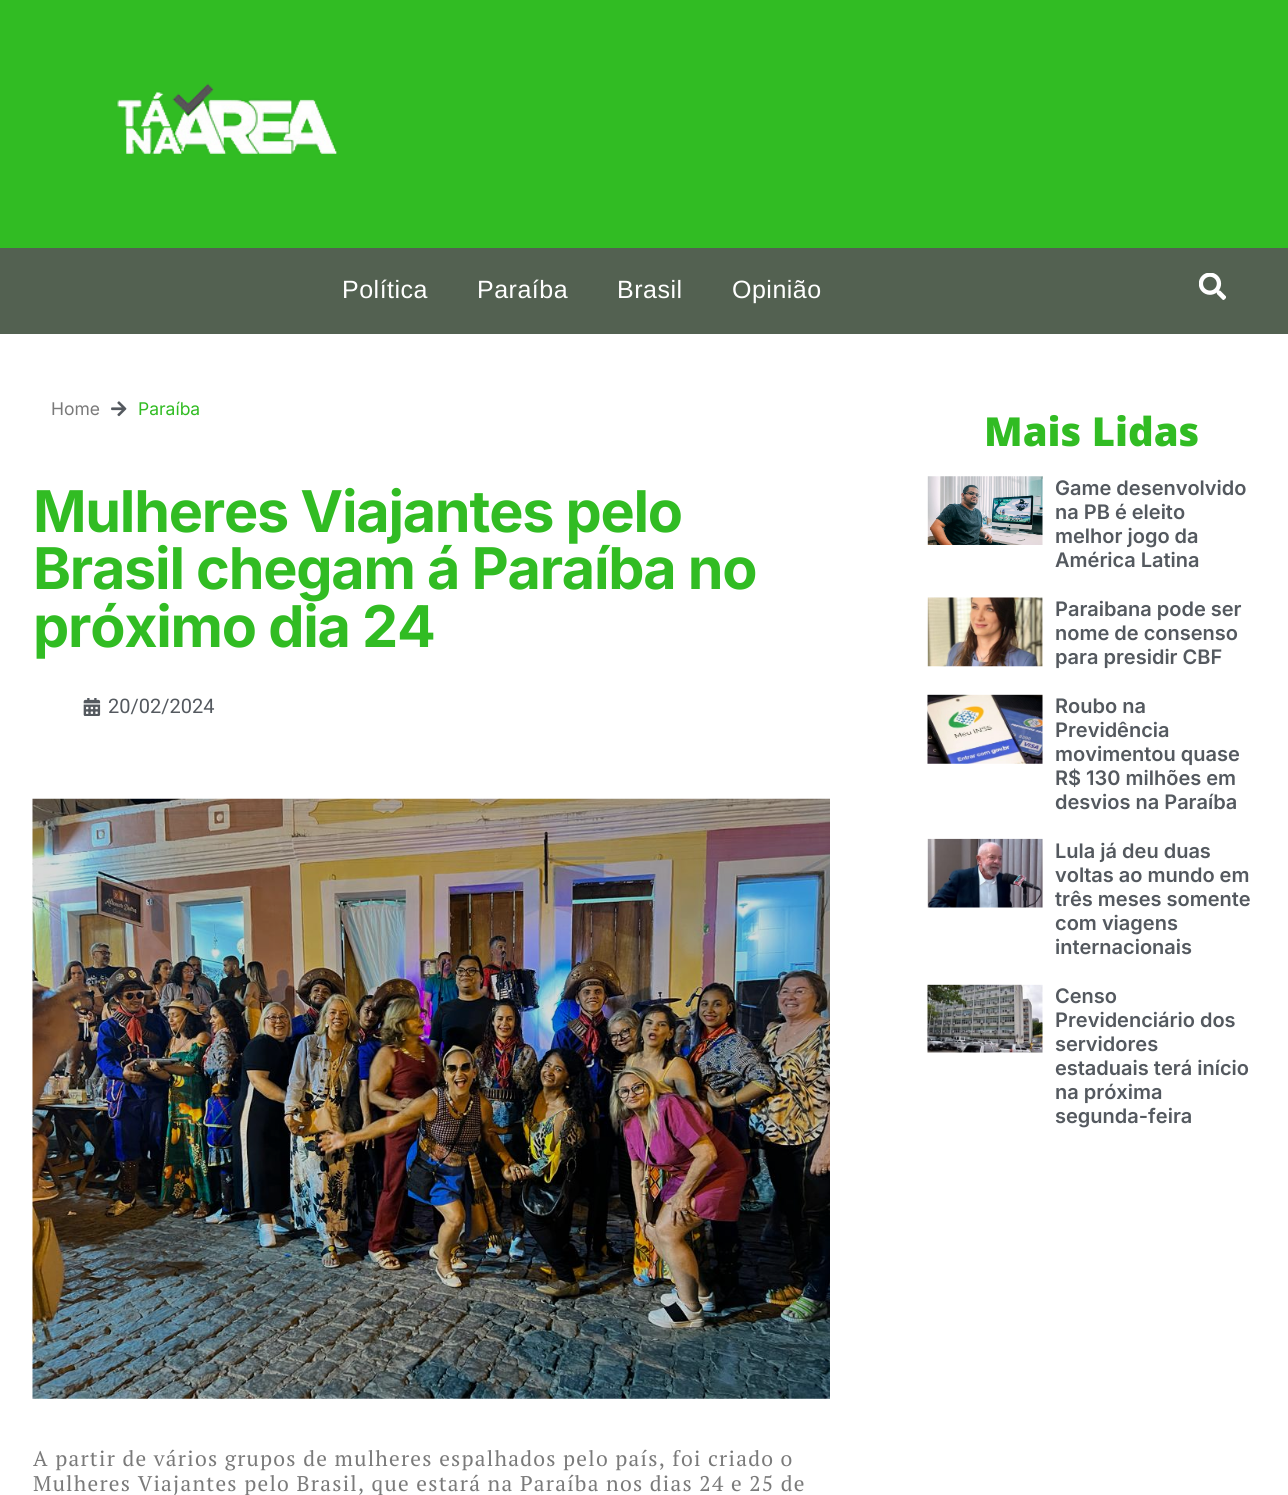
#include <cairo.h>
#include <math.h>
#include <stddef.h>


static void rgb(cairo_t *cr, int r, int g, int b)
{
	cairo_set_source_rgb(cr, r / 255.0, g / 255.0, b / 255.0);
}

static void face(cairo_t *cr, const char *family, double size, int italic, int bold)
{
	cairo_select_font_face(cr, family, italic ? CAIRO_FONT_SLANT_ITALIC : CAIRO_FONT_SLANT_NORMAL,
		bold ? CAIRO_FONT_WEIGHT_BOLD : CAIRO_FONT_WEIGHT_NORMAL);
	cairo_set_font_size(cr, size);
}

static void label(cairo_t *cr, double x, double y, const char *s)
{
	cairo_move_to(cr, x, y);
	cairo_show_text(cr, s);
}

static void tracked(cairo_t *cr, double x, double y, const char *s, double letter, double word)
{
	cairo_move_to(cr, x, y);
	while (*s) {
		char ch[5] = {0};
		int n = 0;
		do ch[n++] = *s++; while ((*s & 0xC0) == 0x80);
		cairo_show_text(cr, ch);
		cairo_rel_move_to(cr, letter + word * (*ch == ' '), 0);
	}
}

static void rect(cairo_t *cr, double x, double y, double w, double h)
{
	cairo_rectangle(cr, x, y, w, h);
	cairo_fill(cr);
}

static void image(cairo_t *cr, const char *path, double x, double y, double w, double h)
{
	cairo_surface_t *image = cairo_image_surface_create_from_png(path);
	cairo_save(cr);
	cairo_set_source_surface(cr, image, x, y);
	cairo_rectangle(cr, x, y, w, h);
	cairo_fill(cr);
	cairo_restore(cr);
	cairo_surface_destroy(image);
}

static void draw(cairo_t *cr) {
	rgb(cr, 255, 255, 255);
	cairo_paint(cr);
	rgb(cr, 49, 188, 35);
	rect(cr, 0, 0, 1288, 248);
	image(cr, "image0.png", 116, 83, 222, 71);
	rgb(cr, 83, 97, 81);
	rect(cr, 0, 248, 1288, 86);
	face(cr, "Liberation Sans", 25, 0, 0);
	rgb(cr, 255, 255, 255);
	tracked(cr, 342, 298, "Política", 0.5, 0);
	tracked(cr, 477, 298, "Paraíba", 0.5, 0);
	tracked(cr, 617, 298, "Brasil", 0.5, 0);
	tracked(cr, 732, 298, "Opinião", 0.5, 0);
	image(cr, "image1.png", 1199, 273, 27, 27);
	face(cr, "Inter", 17.5, 0, 0);
	rgb(cr, 122, 122, 122);
	label(cr, 51, 415, "Home");
	image(cr, "image2.png", 111, 401, 16, 16);
	rgb(cr, 49, 188, 35);
	label(cr, 138, 415, "Paraíba");
	face(cr, "Inter", 57.5, 0, 1);
	tracked(cr, 33, 532, "Mulheres Viajantes pelo", -1.25, 0);
	tracked(cr, 33, 589, "Brasil chegam á Paraíba no", -1.25, 0);
	tracked(cr, 33, 647, "próximo dia 24", -1.25, 0);
	image(cr, "image3.png", 83, 698, 18, 18);
	face(cr, "Roboto", 20, 0, 0);
	rgb(cr, 84, 89, 95);
	label(cr, 108, 713, "20/02/2024");
	image(cr, "image4.png", 32, 798, 798, 601);
	face(cr, "PT Serif", 21.25, 0, 0);
	rgb(cr, 122, 122, 122);
	tracked(cr, 33, 1466, "A partir de vários grupos de mulheres espalhados pelo país, foi criado o", 1.25, 0);
	tracked(cr, 33, 1491, "Mulheres Viajantes pelo Brasil, que estará na Paraíba nos dias 24 e 25 de", 1.25, 0);
	face(cr, "Open Sans ExtraBold", 40, 0, 0);
	rgb(cr, 49, 188, 35);
	label(cr, 984, 446, "Mais Lidas");
	image(cr, "image5.png", 927, 476, 116, 69);
	face(cr, "Inter SemiBold", 20, 0, 0);
	rgb(cr, 84, 89, 95);
	label(cr, 1055, 495, "Game desenvolvido");
	label(cr, 1055, 519, "na PB é eleito");
	label(cr, 1055, 543, "melhor jogo da");
	label(cr, 1055, 567, "América Latina");
	image(cr, "image6.png", 927, 597, 116, 70);
	label(cr, 1055, 616, "Paraibana pode ser");
	label(cr, 1055, 640, "nome de consenso");
	label(cr, 1055, 664, "para presidir CBF");
	image(cr, "image7.png", 927, 694, 116, 70);
	label(cr, 1055, 713, "Roubo na");
	label(cr, 1055, 737, "Previdência");
	label(cr, 1055, 761, "movimentou quase");
	label(cr, 1055, 785, "R$ 130 milhões em");
	label(cr, 1055, 809, "desvios na Paraíba");
	image(cr, "image8.png", 927, 838, 116, 70);
	label(cr, 1055, 858, "Lula já deu duas");
	label(cr, 1055, 882, "voltas ao mundo em");
	label(cr, 1055, 906, "três meses somente");
	label(cr, 1055, 930, "com viagens");
	label(cr, 1055, 954, "internacionais");
	image(cr, "image9.png", 927, 984, 116, 69);
	label(cr, 1055, 1003, "Censo");
	label(cr, 1055, 1027, "Previdenciário dos");
	label(cr, 1055, 1051, "servidores");
	label(cr, 1055, 1075, "estaduais terá início");
	label(cr, 1055, 1099, "na próxima");
	label(cr, 1055, 1123, "segunda-feira");
}

int main(void) {
	cairo_surface_t *surface = cairo_image_surface_create(CAIRO_FORMAT_RGB24, 1288, 1495);
	cairo_t *cr = cairo_create(surface);
	cairo_font_options_t *options = cairo_font_options_create();
	cairo_font_options_set_hint_metrics(options, CAIRO_HINT_METRICS_OFF);
	cairo_font_options_set_hint_style(options, CAIRO_HINT_STYLE_NONE);
	cairo_set_font_options(cr, options);
	cairo_set_miter_limit(cr, 4);
	draw(cr);
	cairo_surface_write_to_png(surface, "render.png");
	cairo_font_options_destroy(options);
	cairo_destroy(cr);
	cairo_surface_destroy(surface);
	return 0;
}
